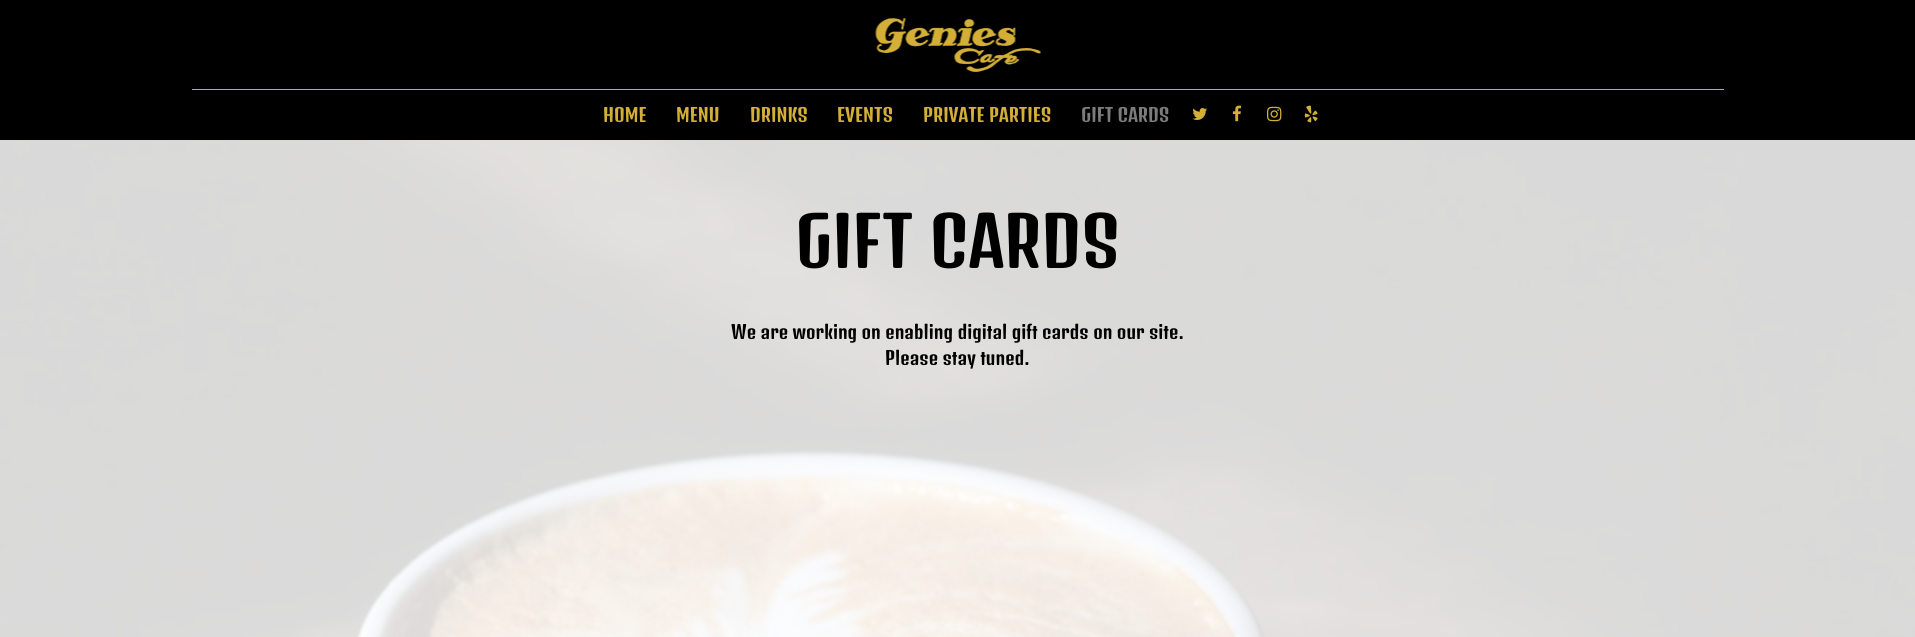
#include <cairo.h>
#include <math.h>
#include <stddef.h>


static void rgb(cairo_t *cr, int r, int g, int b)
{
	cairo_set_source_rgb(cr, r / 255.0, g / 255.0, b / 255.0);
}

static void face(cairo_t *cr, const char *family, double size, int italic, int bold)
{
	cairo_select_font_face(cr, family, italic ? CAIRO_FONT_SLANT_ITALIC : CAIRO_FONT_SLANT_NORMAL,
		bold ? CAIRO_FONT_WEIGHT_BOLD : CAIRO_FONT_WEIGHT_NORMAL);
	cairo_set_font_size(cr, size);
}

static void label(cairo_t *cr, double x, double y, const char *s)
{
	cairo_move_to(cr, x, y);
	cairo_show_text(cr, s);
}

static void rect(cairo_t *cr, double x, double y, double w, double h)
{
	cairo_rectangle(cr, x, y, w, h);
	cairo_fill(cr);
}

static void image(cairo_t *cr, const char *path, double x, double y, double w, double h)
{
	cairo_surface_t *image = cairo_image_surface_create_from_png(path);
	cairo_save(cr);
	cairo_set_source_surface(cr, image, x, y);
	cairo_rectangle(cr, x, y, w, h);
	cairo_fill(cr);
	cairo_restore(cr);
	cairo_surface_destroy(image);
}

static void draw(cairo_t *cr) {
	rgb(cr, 255, 255, 255);
	cairo_paint(cr);
	rgb(cr, 0, 0, 0);
	rect(cr, 0, 0, 1915, 140);
	rgb(cr, 212, 175, 55);
	rect(cr, 192, 89, 1532, 1);
	image(cr, "image0.png", 875, 18, 166, 54);
	face(cr, "Denk One", 18.2, 0, 0);
	label(cr, 603, 122, "HOME");
	label(cr, 676, 122, "MENU");
	label(cr, 750, 122, "DRINKS");
	label(cr, 837, 122, "EVENTS");
	label(cr, 923, 122, "PRIVATE PARTIES");
	rgb(cr, 124, 124, 124);
	label(cr, 1081, 122, "GIFT CARDS");
	image(cr, "image1.png", 1192, 108, 15, 12);
	image(cr, "image2.png", 1232, 105, 9, 17);
	image(cr, "image3.png", 1267, 106, 15, 16);
	image(cr, "image4.png", 1304, 105, 14, 18);
	image(cr, "image5.png", 0, 140, 1915, 497);
	face(cr, "Denk One", 67, 0, 0);
	rgb(cr, 0, 0, 0);
	label(cr, 795, 268, "GIFT CARDS");
	face(cr, "Denk One", 18.2, 0, 0);
	label(cr, 731, 339, "We are working on enabling digital gift cards on our site.");
	label(cr, 885, 365, "Please stay tuned.");
}

int main(void) {
	cairo_surface_t *surface = cairo_image_surface_create(CAIRO_FORMAT_RGB24, 1915, 637);
	cairo_t *cr = cairo_create(surface);
	cairo_font_options_t *options = cairo_font_options_create();
	cairo_font_options_set_hint_metrics(options, CAIRO_HINT_METRICS_OFF);
	cairo_font_options_set_hint_style(options, CAIRO_HINT_STYLE_NONE);
	cairo_set_font_options(cr, options);
	cairo_set_miter_limit(cr, 4);
	draw(cr);
	cairo_surface_write_to_png(surface, "render.png");
	cairo_font_options_destroy(options);
	cairo_destroy(cr);
	cairo_surface_destroy(surface);
	return 0;
}
